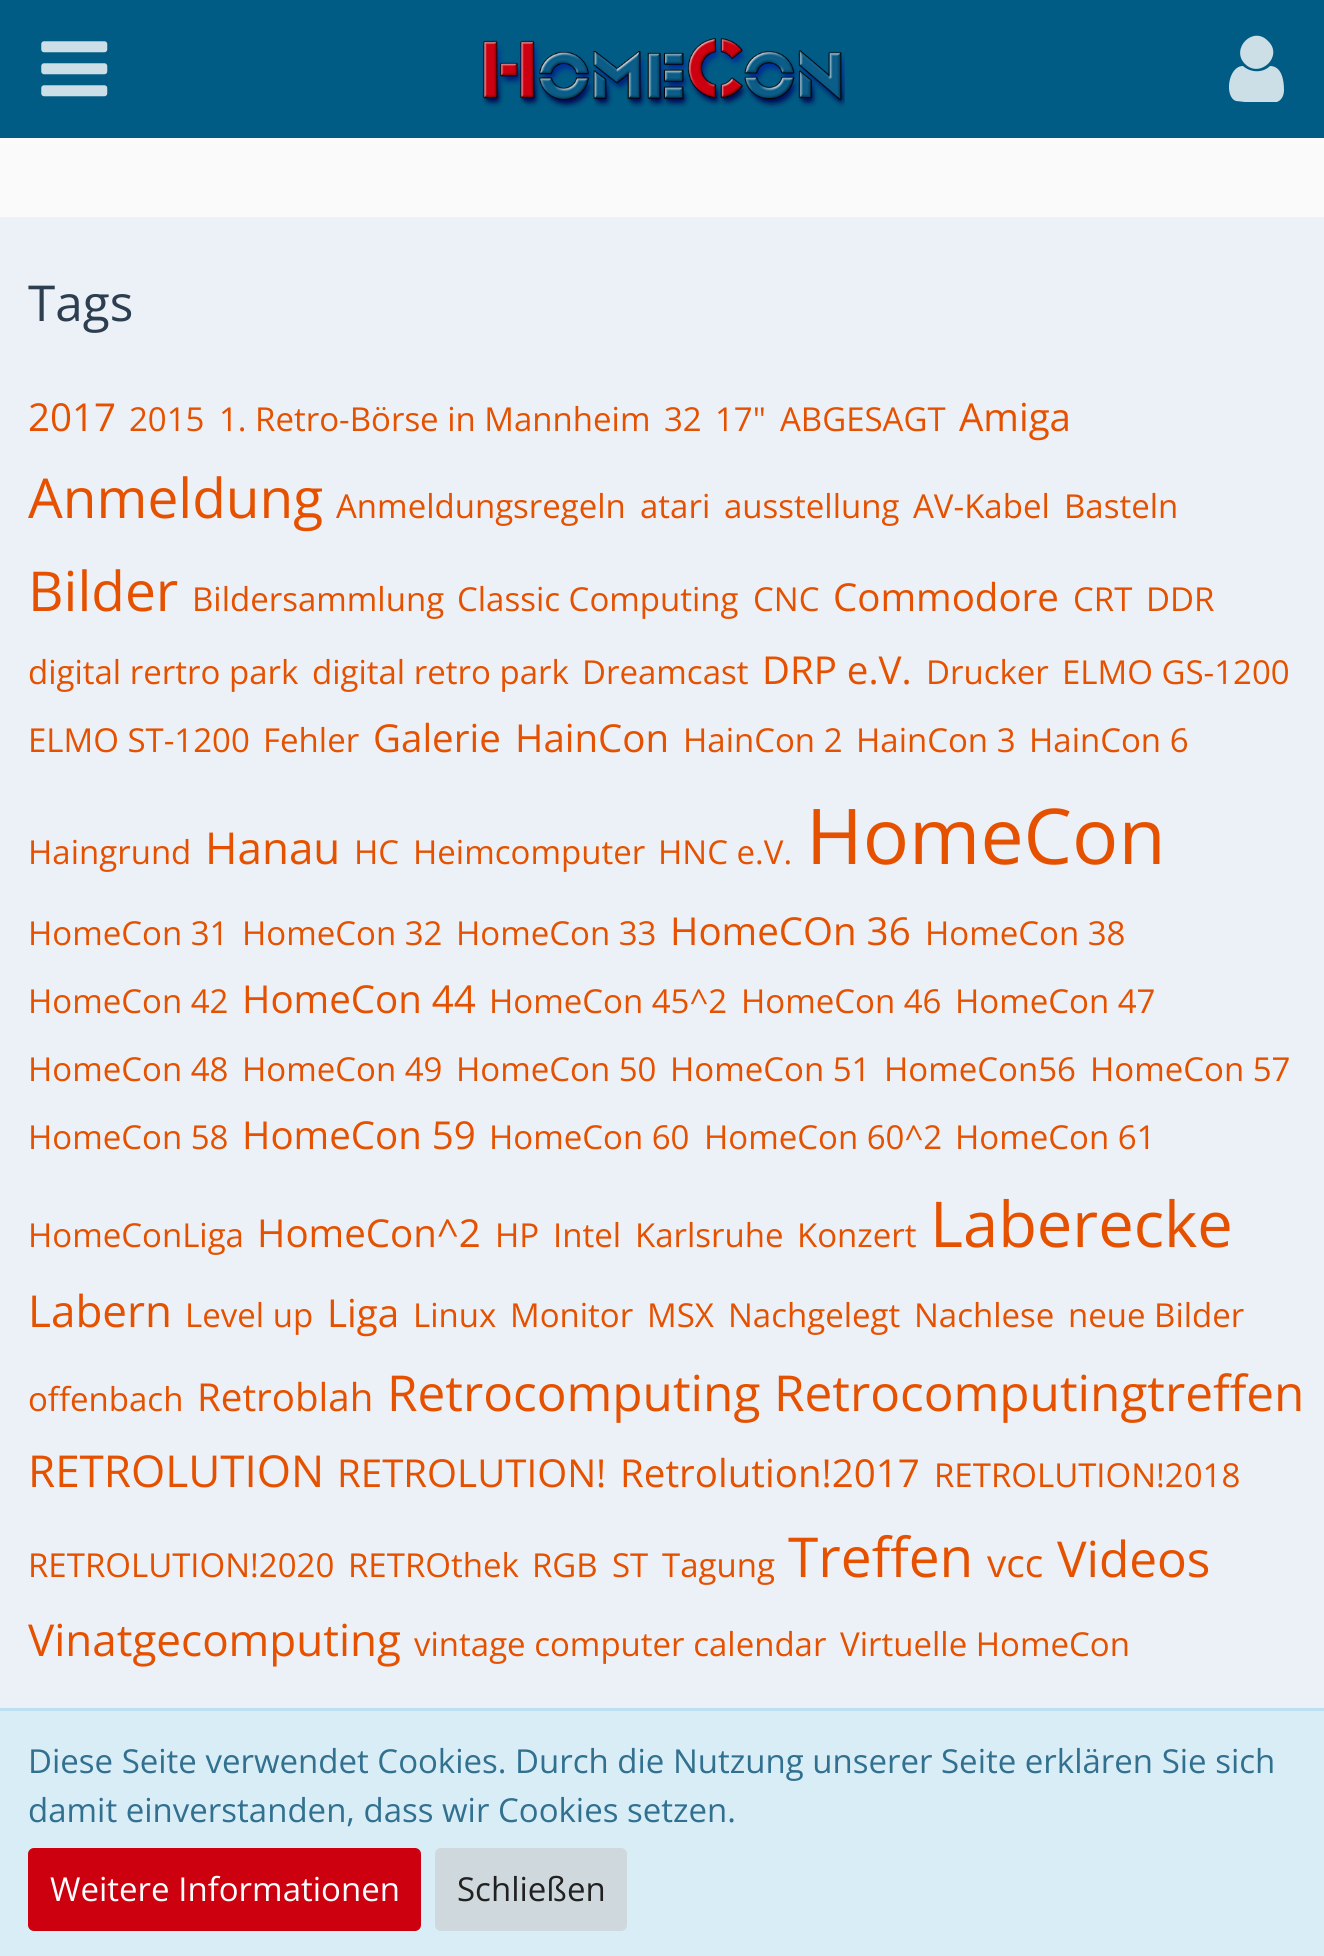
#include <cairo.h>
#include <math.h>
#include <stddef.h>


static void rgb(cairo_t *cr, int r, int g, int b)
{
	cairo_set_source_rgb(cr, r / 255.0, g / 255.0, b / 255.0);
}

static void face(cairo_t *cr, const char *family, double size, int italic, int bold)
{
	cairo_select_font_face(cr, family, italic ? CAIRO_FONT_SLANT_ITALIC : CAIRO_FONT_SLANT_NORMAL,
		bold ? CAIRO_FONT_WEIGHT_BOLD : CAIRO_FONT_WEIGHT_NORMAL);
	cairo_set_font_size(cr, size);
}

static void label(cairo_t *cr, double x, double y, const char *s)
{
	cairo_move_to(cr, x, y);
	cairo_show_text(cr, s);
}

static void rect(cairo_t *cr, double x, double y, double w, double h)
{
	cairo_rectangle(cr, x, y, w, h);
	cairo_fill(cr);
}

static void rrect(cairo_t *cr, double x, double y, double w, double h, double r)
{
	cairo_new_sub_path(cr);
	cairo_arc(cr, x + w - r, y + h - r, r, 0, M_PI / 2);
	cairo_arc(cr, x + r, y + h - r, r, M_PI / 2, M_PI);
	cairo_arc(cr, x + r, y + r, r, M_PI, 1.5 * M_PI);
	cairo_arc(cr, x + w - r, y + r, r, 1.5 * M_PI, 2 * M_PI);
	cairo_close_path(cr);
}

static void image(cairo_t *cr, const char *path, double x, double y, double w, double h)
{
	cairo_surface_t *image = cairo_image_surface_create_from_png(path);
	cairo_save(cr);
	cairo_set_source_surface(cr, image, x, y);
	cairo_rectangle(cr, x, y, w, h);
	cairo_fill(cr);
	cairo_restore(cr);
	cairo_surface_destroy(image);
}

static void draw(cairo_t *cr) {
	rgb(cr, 250, 250, 250);
	cairo_paint(cr);
	rgb(cr, 0, 92, 132);
	rect(cr, 0, 0, 1324, 138);
	image(cr, "image0.png", 41, 41, 67, 56);
	rgb(cr, 204, 222, 230);
	cairo_new_path(cr);
	cairo_move_to(cr, 1284, 90);
	cairo_curve_to(cr, 1284, 95, 1282, 100, 1277, 102);
	cairo_line_to(cr, 1245, 102);
	cairo_line_to(cr, 1236, 101);
	cairo_curve_to(cr, 1224, 97, 1228, 66, 1243, 66);
	cairo_curve_to(cr, 1251, 73, 1263, 73, 1270, 66);
	cairo_curve_to(cr, 1282, 66, 1284, 81, 1284, 90);
	cairo_close_path(cr);
	cairo_move_to(cr, 1268, 41);
	cairo_curve_to(cr, 1284, 56, 1260, 79, 1245, 64);
	cairo_curve_to(cr, 1230, 49, 1253, 25, 1268, 41);
	cairo_close_path(cr);
	cairo_fill(cr);
	image(cr, "image1.png", 482, 38, 363, 70);
	rgb(cr, 236, 241, 247);
	rect(cr, 0, 217, 1324, 1491);
	face(cr, "Open Sans", 49.5, 0, 0);
	rgb(cr, 44, 62, 80);
	label(cr, 28, 321, "Tags");
	face(cr, "Open Sans", 38.5, 0, 0);
	rgb(cr, 230, 81, 0);
	label(cr, 28, 431, "2017");
	face(cr, "Open Sans", 33, 0, 0);
	label(cr, 129, 431, "2015");
	label(cr, 219, 431, "1. Retro-Börse in Mannheim");
	label(cr, 664, 431, "32");
	label(cr, 715, 431, "17\"");
	label(cr, 780, 431, "ABGESAGT");
	face(cr, "Open Sans", 38.5, 0, 0);
	label(cr, 959, 431, "Amiga");
	face(cr, "Open Sans", 55, 0, 0);
	label(cr, 28, 518, "Anmeldung");
	face(cr, "Open Sans", 33, 0, 0);
	label(cr, 336, 518, "Anmeldungsregeln");
	label(cr, 640, 518, "atari");
	label(cr, 724, 518, "ausstellung");
	label(cr, 913, 518, "AV-Kabel");
	label(cr, 1064, 518, "Basteln");
	face(cr, "Open Sans", 55, 0, 0);
	label(cr, 28, 611, "Bilder");
	face(cr, "Open Sans", 33, 0, 0);
	label(cr, 192, 611, "Bildersammlung");
	label(cr, 457, 611, "Classic Computing");
	label(cr, 753, 611, "CNC");
	face(cr, "Open Sans", 38.5, 0, 0);
	label(cr, 833, 611, "Commodore");
	face(cr, "Open Sans", 33, 0, 0);
	label(cr, 1073, 611, "CRT");
	label(cr, 1146, 611, "DDR");
	label(cr, 28, 684, "digital rertro park");
	label(cr, 312, 684, "digital retro park");
	label(cr, 582, 684, "Dreamcast");
	face(cr, "Open Sans", 38.5, 0, 0);
	label(cr, 762, 684, "DRP e.V.");
	face(cr, "Open Sans", 33, 0, 0);
	label(cr, 926, 684, "Drucker");
	label(cr, 1062, 684, "ELMO GS-1200");
	label(cr, 28, 752, "ELMO ST-1200");
	label(cr, 263, 752, "Fehler");
	face(cr, "Open Sans", 38.5, 0, 0);
	label(cr, 373, 752, "Galerie");
	label(cr, 515, 752, "HainCon");
	face(cr, "Open Sans", 33, 0, 0);
	label(cr, 683, 752, "HainCon 2");
	label(cr, 856, 752, "HainCon 3");
	label(cr, 1029, 752, "HainCon 6");
	label(cr, 28, 864, "Haingrund");
	face(cr, "Open Sans", 44, 0, 0);
	label(cr, 205, 864, "Hanau");
	face(cr, "Open Sans", 33, 0, 0);
	label(cr, 354, 864, "HC");
	label(cr, 413, 864, "Heimcomputer");
	label(cr, 658, 864, "HNC e.V.");
	face(cr, "Open Sans", 77, 0, 0);
	label(cr, 806, 864, "HomeCon");
	face(cr, "Open Sans", 33, 0, 0);
	label(cr, 28, 945, "HomeCon 31");
	label(cr, 242, 945, "HomeCon 32");
	label(cr, 456, 945, "HomeCon 33");
	face(cr, "Open Sans", 38.5, 0, 0);
	label(cr, 670, 945, "HomeCOn 36");
	face(cr, "Open Sans", 33, 0, 0);
	label(cr, 925, 945, "HomeCon 38");
	label(cr, 28, 1013, "HomeCon 42");
	face(cr, "Open Sans", 38.5, 0, 0);
	label(cr, 242, 1013, "HomeCon 44");
	face(cr, "Open Sans", 33, 0, 0);
	label(cr, 489, 1013, "HomeCon 45^2");
	label(cr, 741, 1013, "HomeCon 46");
	label(cr, 955, 1013, "HomeCon 47");
	label(cr, 28, 1081, "HomeCon 48");
	label(cr, 242, 1081, "HomeCon 49");
	label(cr, 456, 1081, "HomeCon 50");
	label(cr, 670, 1081, "HomeCon 51");
	label(cr, 884, 1081, "HomeCon56");
	label(cr, 1090, 1081, "HomeCon 57");
	label(cr, 28, 1149, "HomeCon 58");
	face(cr, "Open Sans", 38.5, 0, 0);
	label(cr, 242, 1149, "HomeCon 59");
	face(cr, "Open Sans", 33, 0, 0);
	label(cr, 489, 1149, "HomeCon 60");
	label(cr, 704, 1149, "HomeCon 60^2");
	label(cr, 955, 1149, "HomeCon 61");
	label(cr, 28, 1247, "HomeConLiga");
	face(cr, "Open Sans", 38.5, 0, 0);
	label(cr, 257, 1247, "HomeCon^2");
	face(cr, "Open Sans", 33, 0, 0);
	label(cr, 495, 1247, "HP");
	label(cr, 553, 1247, "Intel");
	label(cr, 635, 1247, "Karlsruhe");
	label(cr, 797, 1247, "Konzert");
	face(cr, "Open Sans", 63.25, 0, 0);
	label(cr, 930, 1247, "Laberecke");
	face(cr, "Open Sans", 44, 0, 0);
	label(cr, 28, 1327, "Labern");
	face(cr, "Open Sans", 33, 0, 0);
	label(cr, 185, 1327, "Level up");
	face(cr, "Open Sans", 38.5, 0, 0);
	label(cr, 327, 1327, "Liga");
	face(cr, "Open Sans", 33, 0, 0);
	label(cr, 413, 1327, "Linux");
	label(cr, 510, 1327, "Monitor");
	label(cr, 647, 1327, "MSX");
	label(cr, 728, 1327, "Nachgelegt");
	label(cr, 914, 1327, "Nachlese");
	label(cr, 1068, 1327, "neue Bilder");
	label(cr, 28, 1411, "offenbach");
	face(cr, "Open Sans", 38.5, 0, 0);
	label(cr, 197, 1411, "Retroblah");
	face(cr, "Open Sans", 49.5, 0, 0);
	label(cr, 387, 1411, "Retrocomputing");
	label(cr, 774, 1411, "Retrocomputingtreffen");
	face(cr, "Open Sans", 44, 0, 0);
	label(cr, 28, 1487, "RETROLUTION");
	face(cr, "Open Sans", 38.5, 0, 0);
	label(cr, 337, 1487, "RETROLUTION!");
	label(cr, 620, 1487, "Retrolution!2017");
	face(cr, "Open Sans", 33, 0, 0);
	label(cr, 934, 1487, "RETROLUTION!2018");
	label(cr, 28, 1577, "RETROLUTION!2020");
	label(cr, 348, 1577, "RETROthek");
	label(cr, 532, 1577, "RGB");
	label(cr, 612, 1577, "ST");
	label(cr, 662, 1577, "Tagung");
	face(cr, "Open Sans", 55, 0, 0);
	label(cr, 788, 1577, "Treffen");
	face(cr, "Open Sans", 38.5, 0, 0);
	label(cr, 987, 1577, "vcc");
	face(cr, "Open Sans", 49.5, 0, 0);
	label(cr, 1057, 1577, "Videos");
	face(cr, "Open Sans", 44, 0, 0);
	label(cr, 28, 1656, "Vinatgecomputing");
	face(cr, "Open Sans", 33, 0, 0);
	label(cr, 414, 1656, "vintage computer calendar");
	label(cr, 840, 1656, "Virtuelle HomeCon");
	rgb(cr, 217, 237, 247);
	rect(cr, 0, 1711, 1324, 245);
	rgb(cr, 188, 223, 241);
	rect(cr, 0, 1708, 1324, 3);
	rgb(cr, 49, 112, 143);
	label(cr, 28, 1773, "Diese Seite verwendet Cookies. Durch die Nutzung unserer Seite erklären Sie sich");
	label(cr, 28, 1822, "damit einverstanden, dass wir Cookies setzen.");
	rgb(cr, 204, 0, 15);
	rrect(cr, 28, 1848, 393, 83, 6);
	cairo_fill(cr);
	rgb(cr, 255, 255, 255);
	label(cr, 50, 1901, "Weitere Informationen");
	rgb(cr, 207, 216, 220);
	rrect(cr, 435, 1848, 192, 83, 6);
	cairo_fill(cr);
	rgb(cr, 33, 33, 33);
	label(cr, 457, 1901, "Schließen");
}

int main(void) {
	cairo_surface_t *surface = cairo_image_surface_create(CAIRO_FORMAT_RGB24, 1324, 1956);
	cairo_t *cr = cairo_create(surface);
	cairo_font_options_t *options = cairo_font_options_create();
	cairo_font_options_set_hint_metrics(options, CAIRO_HINT_METRICS_OFF);
	cairo_font_options_set_hint_style(options, CAIRO_HINT_STYLE_NONE);
	cairo_set_font_options(cr, options);
	cairo_set_miter_limit(cr, 4);
	draw(cr);
	cairo_surface_write_to_png(surface, "render.png");
	cairo_font_options_destroy(options);
	cairo_destroy(cr);
	cairo_surface_destroy(surface);
	return 0;
}
